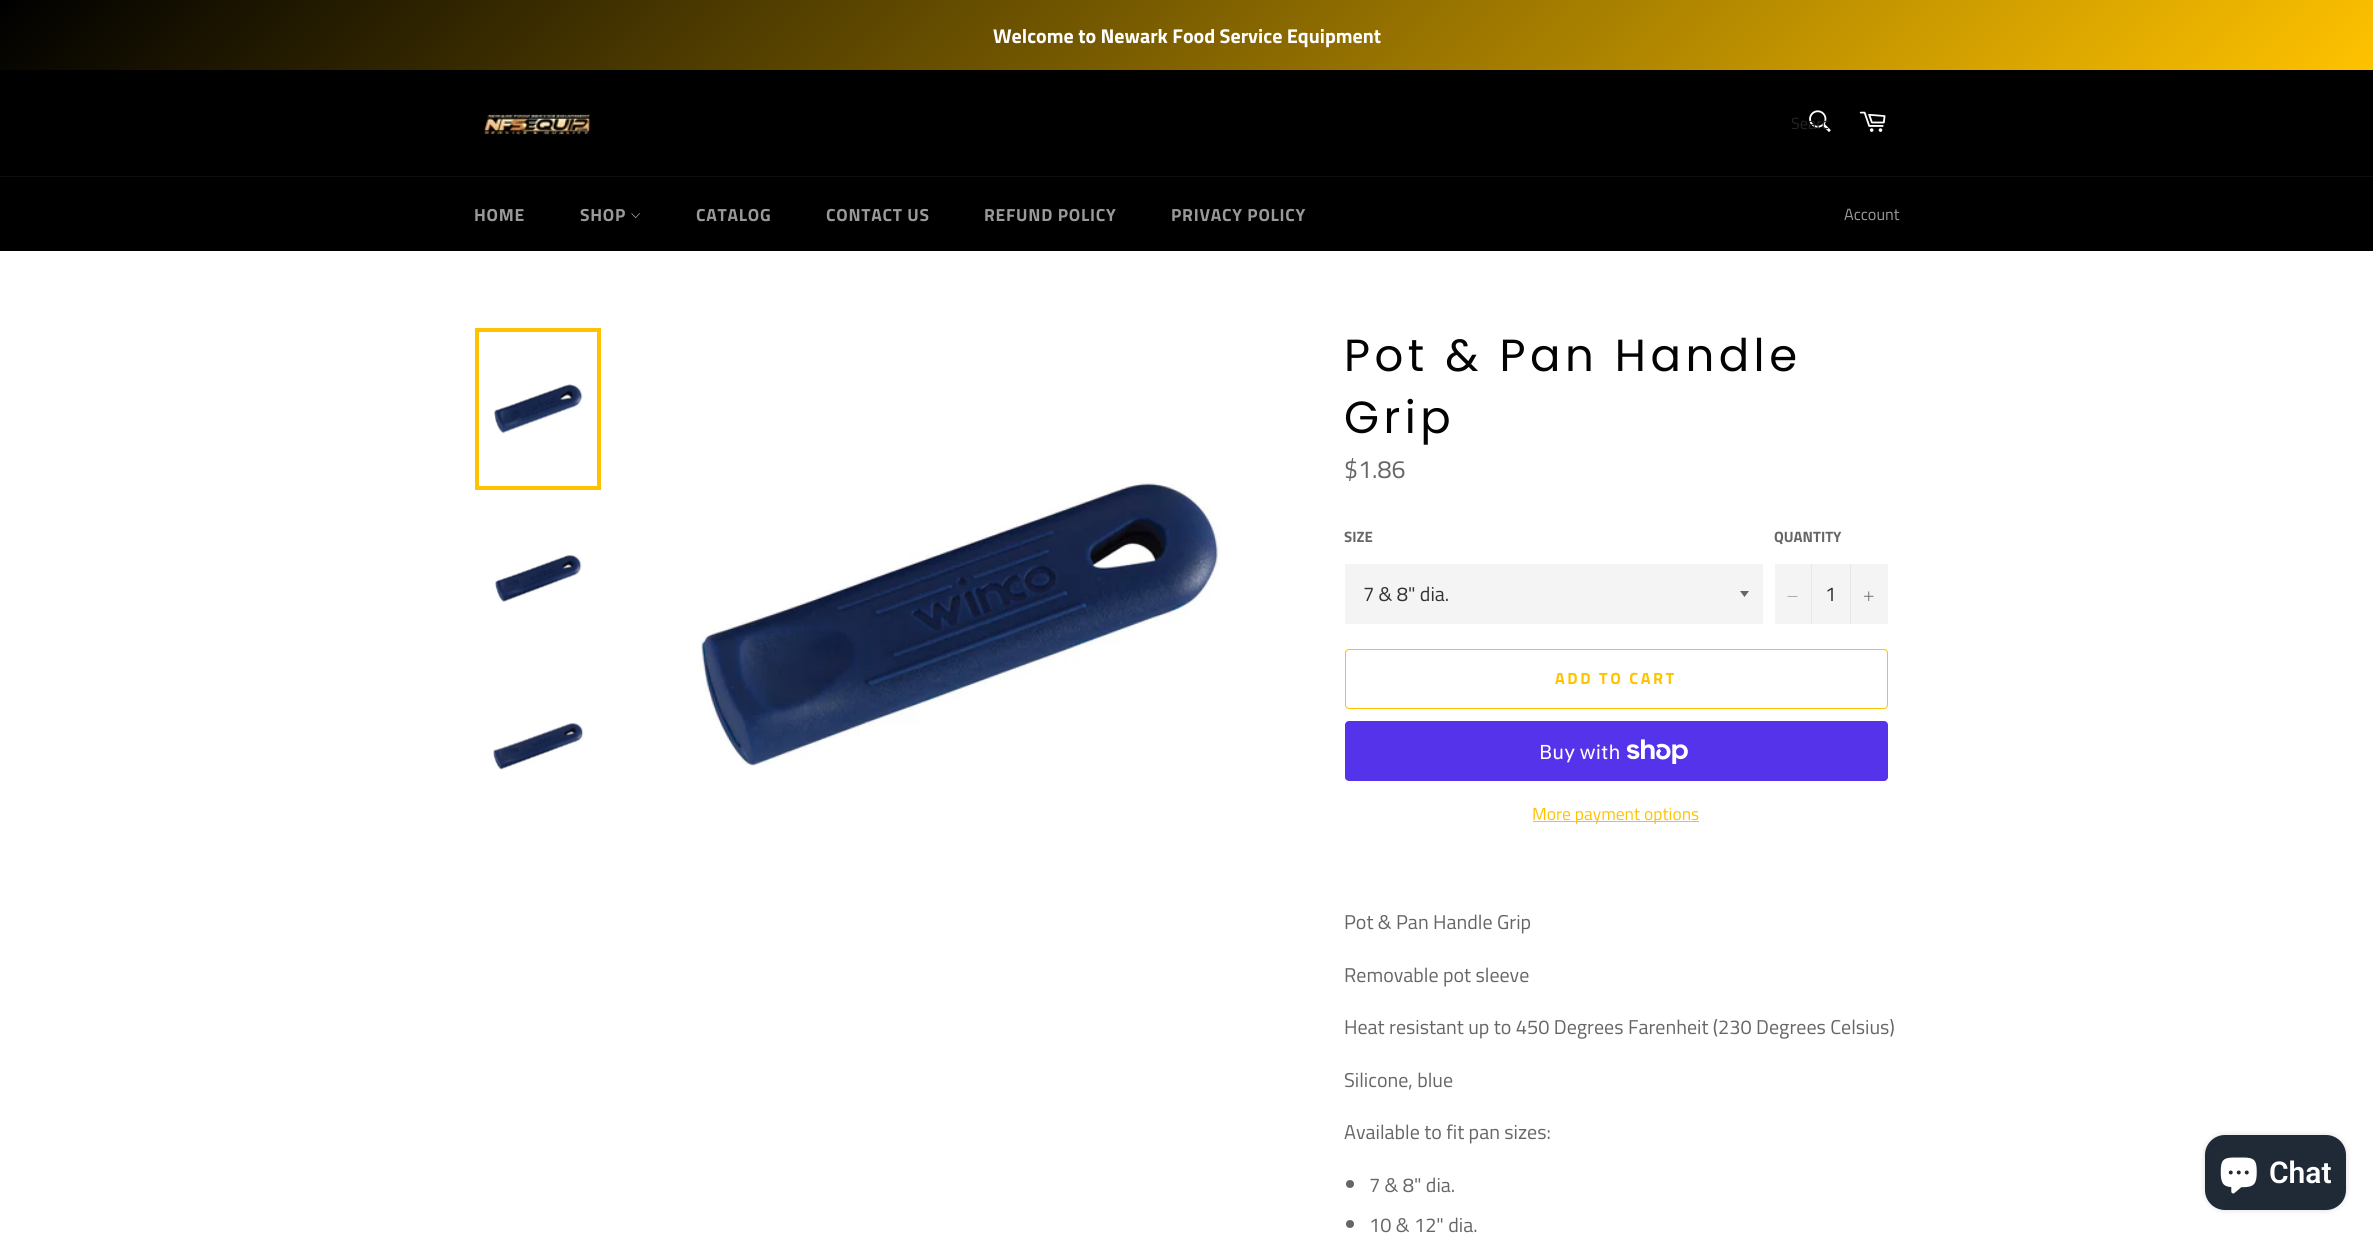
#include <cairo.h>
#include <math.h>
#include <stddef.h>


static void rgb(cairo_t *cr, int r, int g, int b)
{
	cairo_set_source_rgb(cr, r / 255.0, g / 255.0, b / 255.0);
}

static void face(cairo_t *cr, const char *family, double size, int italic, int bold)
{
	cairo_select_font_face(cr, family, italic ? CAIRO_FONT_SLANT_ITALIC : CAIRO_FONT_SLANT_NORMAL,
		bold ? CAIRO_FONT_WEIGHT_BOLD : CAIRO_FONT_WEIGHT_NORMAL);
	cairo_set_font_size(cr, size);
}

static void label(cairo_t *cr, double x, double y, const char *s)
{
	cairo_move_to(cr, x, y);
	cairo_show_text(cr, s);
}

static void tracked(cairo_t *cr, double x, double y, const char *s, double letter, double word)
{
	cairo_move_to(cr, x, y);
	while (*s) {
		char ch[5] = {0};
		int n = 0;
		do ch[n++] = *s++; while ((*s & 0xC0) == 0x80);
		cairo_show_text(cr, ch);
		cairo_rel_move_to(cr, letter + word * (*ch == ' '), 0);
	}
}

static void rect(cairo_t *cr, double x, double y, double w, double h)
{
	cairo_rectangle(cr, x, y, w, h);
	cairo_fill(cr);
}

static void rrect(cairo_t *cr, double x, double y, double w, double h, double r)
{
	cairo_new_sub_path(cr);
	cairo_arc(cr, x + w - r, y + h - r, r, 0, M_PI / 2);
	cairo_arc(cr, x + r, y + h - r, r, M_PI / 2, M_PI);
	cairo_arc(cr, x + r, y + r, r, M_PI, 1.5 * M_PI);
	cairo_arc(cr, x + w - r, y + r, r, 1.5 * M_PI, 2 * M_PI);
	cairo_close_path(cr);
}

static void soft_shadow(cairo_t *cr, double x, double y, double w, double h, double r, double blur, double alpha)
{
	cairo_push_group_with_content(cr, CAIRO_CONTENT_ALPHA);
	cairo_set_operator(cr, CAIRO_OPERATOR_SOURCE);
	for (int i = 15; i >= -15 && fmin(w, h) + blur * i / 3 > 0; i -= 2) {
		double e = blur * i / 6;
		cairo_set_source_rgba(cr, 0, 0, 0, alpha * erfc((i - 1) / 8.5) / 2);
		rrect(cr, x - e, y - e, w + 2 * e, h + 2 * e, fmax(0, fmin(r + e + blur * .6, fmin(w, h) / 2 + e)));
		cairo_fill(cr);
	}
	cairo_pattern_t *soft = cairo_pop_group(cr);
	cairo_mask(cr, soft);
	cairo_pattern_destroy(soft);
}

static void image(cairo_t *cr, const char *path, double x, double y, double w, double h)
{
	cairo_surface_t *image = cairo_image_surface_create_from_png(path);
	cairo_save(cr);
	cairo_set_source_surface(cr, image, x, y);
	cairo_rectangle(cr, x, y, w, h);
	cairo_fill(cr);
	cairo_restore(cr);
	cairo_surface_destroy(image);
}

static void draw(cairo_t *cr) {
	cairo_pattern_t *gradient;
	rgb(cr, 255, 255, 255);
	cairo_paint(cr);
	gradient = cairo_pattern_create_linear(576, -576, 1798, 646);
	cairo_pattern_add_color_stop_rgba(gradient, 0, 0, 0, 0, 1);
	cairo_pattern_add_color_stop_rgba(gradient, 1, 1, 0.761, 0, 1);
	cairo_set_source(cr, gradient);
	cairo_pattern_destroy(gradient);
	rect(cr, 0, 0, 2373, 70);
	face(cr, "Titillium Web", 20, 0, 1);
	rgb(cr, 255, 255, 255);
	label(cr, 993, 43, "Welcome to Newark Food Service Equipment");
	rgb(cr, 0, 0, 0);
	rect(cr, 0, 70, 2373, 106);
	image(cr, "image0.png", 483, 113, 108, 23);
	image(cr, "image1.png", 1809, 110, 22, 22);
	face(cr, "Titillium Web", 16.25, 0, 0);
	rgb(cr, 36, 36, 36);
	label(cr, 1791, 129, "Searc");
	image(cr, "image2.png", 1859, 111, 27, 21);
	rgb(cr, 0, 0, 0);
	rect(cr, 0, 177, 2373, 74);
	rgb(cr, 13, 13, 13);
	rect(cr, 0, 176, 2373, 1);
	face(cr, "Titillium Web", 17.5, 0, 1);
	rgb(cr, 153, 153, 153);
	tracked(cr, 474, 221, "HOME", 0.75, 0);
	tracked(cr, 580, 221, "SHOP", 0.75, 0);
	image(cr, "image3.png", 631, 213, 9, 6);
	tracked(cr, 696, 221, "CATALOG", 0.75, 0);
	tracked(cr, 826, 221, "CONTACT US", 0.75, 0);
	tracked(cr, 984, 221, "REFUND POLICY", 0.75, 0);
	tracked(cr, 1171, 221, "PRIVACY POLICY", 0.75, 0);
	face(cr, "Titillium Web", 16.25, 0, 0);
	label(cr, 1844, 220, "Account");
	image(cr, "image4.png", 494, 384, 89, 50);
	cairo_rectangle(cr, 477, 330, 122, 158);
	rgb(cr, 255, 194, 0);
	cairo_set_line_width(cr, 4);
	cairo_stroke(cr);
	image(cr, "image5.png", 495, 555, 87, 47);
	image(cr, "image6.png", 493, 723, 91, 47);
	image(cr, "image7.png", 700, 480, 520, 286);
	face(cr, "Poppins", 45, 0, 0);
	rgb(cr, 3, 3, 3);
	tracked(cr, 1344, 371, "Pot & Pan Handle", 4.5, 0);
	tracked(cr, 1344, 433, "Grip", 4.5, 0);
	face(cr, "Titillium Web", 25, 0, 0);
	rgb(cr, 102, 102, 102);
	label(cr, 1344, 478, "$1.86");
	face(cr, "Titillium Web", 15, 0, 1);
	label(cr, 1344, 542, "SIZE");
	rgb(cr, 244, 244, 244);
	rect(cr, 1345, 564, 418, 60);
	rgb(cr, 102, 102, 102);
	cairo_new_path(cr);
	cairo_move_to(cr, 1740, 591);
	cairo_line_to(cr, 1744.5, 597);
	cairo_line_to(cr, 1749, 591);
	cairo_close_path(cr);
	cairo_fill(cr);
	face(cr, "Titillium Web", 20, 0, 0);
	rgb(cr, 51, 51, 51);
	label(cr, 1363, 601, "7 & 8\" dia.");
	face(cr, "Titillium Web", 15, 0, 1);
	rgb(cr, 102, 102, 102);
	label(cr, 1774, 542, "QUANTITY");
	rgb(cr, 244, 244, 244);
	rect(cr, 1775, 564, 113, 60);
	rgb(cr, 231, 231, 231);
	rect(cr, 1811, 564, 1, 60);
	rgb(cr, 102, 102, 102);
	cairo_set_fill_rule(cr, CAIRO_FILL_RULE_EVEN_ODD);
	cairo_new_path(cr);
	cairo_move_to(cr, 1797.5, 596);
	cairo_line_to(cr, 1797.5, 596.5);
	cairo_line_to(cr, 1787.5, 596.5);
	cairo_line_to(cr, 1787.5, 596);
	cairo_close_path(cr);
	cairo_fill(cr);
	face(cr, "Titillium Web", 20, 0, 0);
	rgb(cr, 51, 51, 51);
	label(cr, 1825, 601, "1");
	rgb(cr, 231, 231, 231);
	rect(cr, 1850, 564, 1, 60);
	image(cr, "image8.png", 1864, 591, 10, 10);
	rrect(cr, 1345.5, 649.5, 542, 59, 3.5);
	rgb(cr, 255, 194, 0);
	cairo_set_line_width(cr, 1);
	cairo_stroke(cr);
	face(cr, "Titillium Web", 16.25, 0, 1);
	tracked(cr, 1555, 684, "ADD TO CART", 2.5, 0);
	rgb(cr, 84, 51, 235);
	rrect(cr, 1345, 721, 543, 60, 4);
	cairo_fill(cr);
	face(cr, "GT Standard", 20, 0, 0);
	rgb(cr, 255, 255, 255);
	label(cr, 1539, 759, "Buy with");
	image(cr, "image9.png", 1626, 739, 62, 25);
	rgb(cr, 255, 194, 0);
	rect(cr, 1533, 821, 166, 1);
	face(cr, "Titillium Web", 17.5, 0, 0);
	label(cr, 1532, 820, "More payment options");
	face(cr, "Titillium Web", 20, 0, 0);
	rgb(cr, 102, 102, 102);
	label(cr, 1344, 929, "Pot & Pan Handle Grip");
	label(cr, 1344, 982, "Removable pot sleeve");
	label(cr, 1344, 1034, "Heat resistant up to 450 Degrees Farenheit (230 Degrees Celsius)");
	label(cr, 1344, 1087, "Silicone, blue");
	label(cr, 1344, 1139, "Available to fit pan sizes:");
	cairo_new_path(cr);
	cairo_arc(cr, 1350, 1184, 4, 0, 2 * M_PI);
	cairo_fill(cr);
	label(cr, 1369, 1192, "7 & 8\" dia.");
	cairo_new_path(cr);
	cairo_arc(cr, 1350, 1224, 4, 0, 2 * M_PI);
	cairo_fill(cr);
	label(cr, 1369, 1232, "10 & 12\" dia.");
	rgb(cr, 0, 0, 0);
	soft_shadow(cr, 2205, 1135, 141, 75, 20, 3, 0.15);
	rgb(cr, 32, 42, 54);
	rrect(cr, 2205, 1135, 141, 75, 20);
	cairo_fill(cr);
	image(cr, "image10.png", 2220, 1157, 37, 37);
	face(cr, "Roboto SemiBold", 30, 0, 0);
	rgb(cr, 255, 255, 255);
	label(cr, 2269, 1183, "Chat");
}

int main(void) {
	cairo_surface_t *surface = cairo_image_surface_create(CAIRO_FORMAT_RGB24, 2373, 1236);
	cairo_t *cr = cairo_create(surface);
	cairo_font_options_t *options = cairo_font_options_create();
	cairo_font_options_set_hint_metrics(options, CAIRO_HINT_METRICS_OFF);
	cairo_font_options_set_hint_style(options, CAIRO_HINT_STYLE_NONE);
	cairo_set_font_options(cr, options);
	cairo_set_miter_limit(cr, 4);
	draw(cr);
	cairo_surface_write_to_png(surface, "render.png");
	cairo_font_options_destroy(options);
	cairo_destroy(cr);
	cairo_surface_destroy(surface);
	return 0;
}
